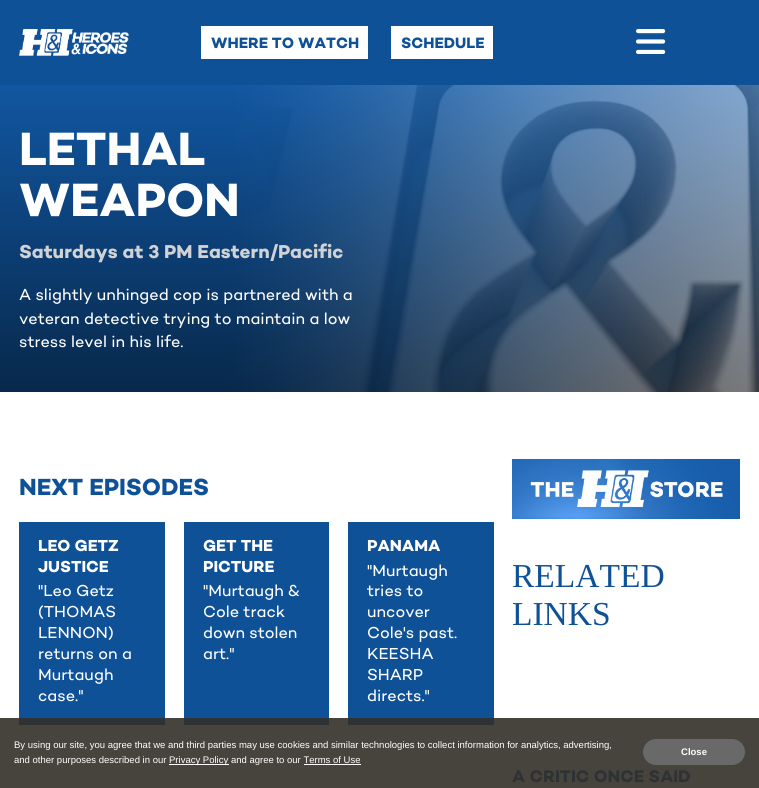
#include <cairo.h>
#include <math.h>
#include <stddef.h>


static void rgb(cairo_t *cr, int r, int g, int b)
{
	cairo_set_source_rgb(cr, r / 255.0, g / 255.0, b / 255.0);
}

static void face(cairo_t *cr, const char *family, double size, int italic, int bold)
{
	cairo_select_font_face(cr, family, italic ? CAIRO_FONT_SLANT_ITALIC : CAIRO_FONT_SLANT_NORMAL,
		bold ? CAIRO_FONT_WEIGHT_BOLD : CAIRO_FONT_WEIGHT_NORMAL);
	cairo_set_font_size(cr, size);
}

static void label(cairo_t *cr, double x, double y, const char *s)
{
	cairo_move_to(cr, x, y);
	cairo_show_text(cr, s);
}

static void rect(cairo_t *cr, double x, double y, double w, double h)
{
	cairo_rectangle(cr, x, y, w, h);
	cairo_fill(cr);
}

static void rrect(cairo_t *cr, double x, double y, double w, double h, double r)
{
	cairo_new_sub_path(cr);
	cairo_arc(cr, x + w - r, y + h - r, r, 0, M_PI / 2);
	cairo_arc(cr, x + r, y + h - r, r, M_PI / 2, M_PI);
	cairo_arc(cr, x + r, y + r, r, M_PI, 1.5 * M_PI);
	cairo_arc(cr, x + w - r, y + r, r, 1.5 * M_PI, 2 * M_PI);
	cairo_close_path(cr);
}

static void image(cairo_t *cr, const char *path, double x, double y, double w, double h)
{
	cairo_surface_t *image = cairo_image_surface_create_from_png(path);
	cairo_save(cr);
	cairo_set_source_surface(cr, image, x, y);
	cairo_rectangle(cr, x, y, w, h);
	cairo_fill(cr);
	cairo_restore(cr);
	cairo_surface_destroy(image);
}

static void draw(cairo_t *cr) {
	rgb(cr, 255, 255, 255);
	cairo_paint(cr);
	rgb(cr, 71, 68, 62);
	rect(cr, 0, 718, 759, 70);
	rgb(cr, 15, 81, 151);
	rect(cr, 0, 0, 759, 85);
	image(cr, "image0.png", 19, 29, 110, 27);
	rgb(cr, 255, 255, 255);
	rect(cr, 201, 26, 167, 33);
	face(cr, "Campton", 15.25, 0, 1);
	rgb(cr, 15, 81, 151);
	label(cr, 211, 48, "WHERE TO WATCH");
	rgb(cr, 255, 255, 255);
	rect(cr, 391, 26, 102, 33);
	rgb(cr, 15, 81, 151);
	label(cr, 401, 48, "SCHEDULE");
	image(cr, "image1.png", 636, 29, 30, 25);
	image(cr, "image2.png", 0, 85, 759, 307);
	face(cr, "Campton", 47.5, 0, 1);
	rgb(cr, 255, 255, 255);
	label(cr, 19, 165, "LETHAL");
	label(cr, 19, 216, "WEAPON");
	face(cr, "Campton", 19, 0, 1);
	rgb(cr, 208, 210, 213);
	label(cr, 19, 258, "Saturdays at 3 PM Eastern/Pacific");
	face(cr, "Campton", 16.2, 0, 0);
	rgb(cr, 255, 255, 255);
	label(cr, 19, 300, "A slightly unhinged cop is partnered with a");
	label(cr, 19, 324, "veteran detective trying to maintain a low");
	label(cr, 19, 347, "stress level in his life.");
	face(cr, "Campton", 23.75, 0, 1);
	rgb(cr, 15, 81, 151);
	label(cr, 19, 495, "NEXT EPISODES");
	rect(cr, 19, 522, 146, 196);
	rgb(cr, 47, 50, 52);
	rect(cr, 19, 718, 146, 7);
	face(cr, "Campton", 16.2, 0, 1);
	rgb(cr, 255, 255, 255);
	label(cr, 38, 551, "LEO GETZ");
	label(cr, 38, 572, "JUSTICE");
	face(cr, "Campton", 16.2, 0, 0);
	label(cr, 38, 596, "\"Leo Getz");
	label(cr, 38, 617, "(THOMAS");
	label(cr, 38, 638, "LENNON)");
	label(cr, 38, 659, "returns on a");
	label(cr, 38, 680, "Murtaugh");
	label(cr, 38, 701, "case.\"");
	rgb(cr, 15, 81, 151);
	rect(cr, 184, 522, 145, 196);
	rgb(cr, 47, 50, 52);
	rect(cr, 184, 718, 145, 7);
	face(cr, "Campton", 16.2, 0, 1);
	rgb(cr, 255, 255, 255);
	label(cr, 203, 551, "GET THE");
	label(cr, 203, 572, "PICTURE");
	face(cr, "Campton", 16.2, 0, 0);
	label(cr, 203, 596, "\"Murtaugh &");
	label(cr, 203, 617, "Cole track");
	label(cr, 203, 638, "down stolen");
	label(cr, 203, 659, "art.\"");
	rgb(cr, 15, 81, 151);
	rect(cr, 348, 522, 146, 196);
	rgb(cr, 47, 50, 52);
	rect(cr, 348, 718, 146, 7);
	face(cr, "Campton", 16.2, 0, 1);
	rgb(cr, 255, 255, 255);
	label(cr, 367, 551, "PANAMA");
	face(cr, "Campton", 16.2, 0, 0);
	label(cr, 367, 576, "\"Murtaugh");
	label(cr, 367, 596, "tries to");
	label(cr, 367, 617, "uncover");
	label(cr, 367, 638, "Cole's past.");
	label(cr, 367, 659, "KEESHA");
	label(cr, 367, 680, "SHARP");
	label(cr, 367, 701, "directs.\"");
	image(cr, "image3.png", 512, 459, 228, 60);
	face(cr, "Liberation Serif", 33.5, 0, 0);
	rgb(cr, 15, 81, 151);
	label(cr, 512, 587, "RELATED");
	label(cr, 512, 625, "LINKS");
	face(cr, "Campton", 17.1, 0, 1);
	rgb(cr, 47, 50, 52);
	label(cr, 512, 782, "A CRITIC ONCE SAID");
	face(cr, "Liberation Sans", 9.52, 0, 0);
	rgb(cr, 255, 255, 255);
	label(cr, 14, 748, "By using our site, you agree that we and third parties may use cookies and similar technologies to collect information for analytics, advertising,");
	label(cr, 14, 763, "and other purposes described in our");
	rect(cr, 169, 764, 60, 1);
	label(cr, 169, 763, "Privacy Policy and agree to our Terms of Use");
	rect(cr, 304, 764, 57, 1);
	rgb(cr, 105, 105, 105);
	rrect(cr, 643, 739, 102, 26, 13);
	cairo_fill(cr);
	face(cr, "Liberation Sans", 9.52, 0, 1);
	rgb(cr, 255, 255, 255);
	label(cr, 681, 755, "Close");
}

int main(void) {
	cairo_surface_t *surface = cairo_image_surface_create(CAIRO_FORMAT_RGB24, 759, 788);
	cairo_t *cr = cairo_create(surface);
	cairo_font_options_t *options = cairo_font_options_create();
	cairo_font_options_set_hint_metrics(options, CAIRO_HINT_METRICS_OFF);
	cairo_font_options_set_hint_style(options, CAIRO_HINT_STYLE_NONE);
	cairo_set_font_options(cr, options);
	cairo_set_miter_limit(cr, 4);
	draw(cr);
	cairo_surface_write_to_png(surface, "render.png");
	cairo_font_options_destroy(options);
	cairo_destroy(cr);
	cairo_surface_destroy(surface);
	return 0;
}
